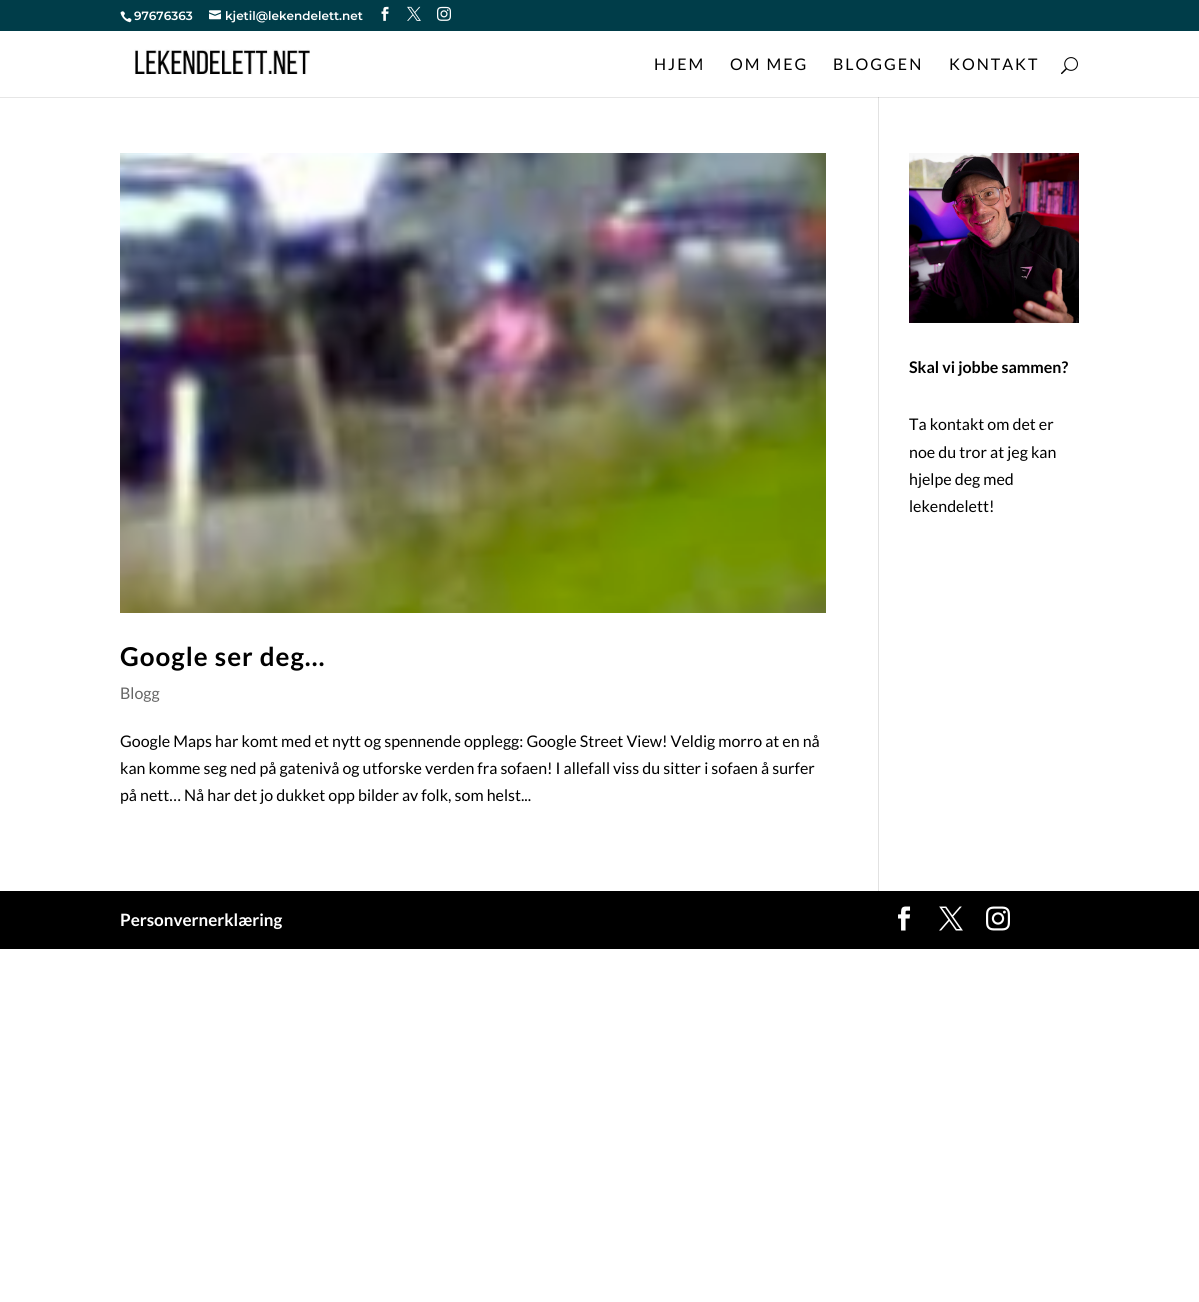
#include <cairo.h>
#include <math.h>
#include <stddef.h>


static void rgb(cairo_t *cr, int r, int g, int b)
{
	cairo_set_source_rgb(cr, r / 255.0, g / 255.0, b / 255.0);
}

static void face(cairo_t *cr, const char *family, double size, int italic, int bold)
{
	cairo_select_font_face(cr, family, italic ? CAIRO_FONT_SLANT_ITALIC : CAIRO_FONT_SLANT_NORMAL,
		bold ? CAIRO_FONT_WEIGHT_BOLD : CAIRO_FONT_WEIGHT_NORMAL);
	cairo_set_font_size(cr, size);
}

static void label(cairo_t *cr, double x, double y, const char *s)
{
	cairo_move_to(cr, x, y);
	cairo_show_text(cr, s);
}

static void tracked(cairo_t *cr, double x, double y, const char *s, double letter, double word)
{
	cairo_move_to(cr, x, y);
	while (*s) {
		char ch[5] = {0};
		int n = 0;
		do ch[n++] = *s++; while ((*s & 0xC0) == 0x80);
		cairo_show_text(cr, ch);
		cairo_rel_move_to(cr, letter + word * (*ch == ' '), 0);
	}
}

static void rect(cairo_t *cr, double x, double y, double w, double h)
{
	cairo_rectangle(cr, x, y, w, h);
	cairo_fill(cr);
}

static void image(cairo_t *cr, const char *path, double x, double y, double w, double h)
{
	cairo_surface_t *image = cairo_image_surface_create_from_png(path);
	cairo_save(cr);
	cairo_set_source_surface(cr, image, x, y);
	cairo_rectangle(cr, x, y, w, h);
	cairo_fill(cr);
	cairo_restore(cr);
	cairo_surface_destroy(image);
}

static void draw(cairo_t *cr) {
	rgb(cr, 255, 255, 255);
	cairo_paint(cr);
	rgb(cr, 230, 230, 230);
	rect(cr, 0, 97, 1199, 1);
	rgb(cr, 0, 61, 73);
	rect(cr, 0, 0, 1199, 31);
	image(cr, "image0.png", 120, 11, 12, 12);
	face(cr, "Montserrat SemiBold", 12, 0, 0);
	rgb(cr, 255, 255, 255);
	label(cr, 134, 20, "97676363");
	image(cr, "image1.png", 209, 10, 12, 10);
	label(cr, 225, 20, "kjetil@lekendelett.net");
	image(cr, "image2.png", 381, 6, 8, 15);
	image(cr, "image3.png", 407, 6, 14, 15);
	image(cr, "image4.png", 437, 6, 14, 15);
	rgb(cr, 226, 226, 226);
	rect(cr, 878, 95, 1, 796);
	rgb(cr, 255, 255, 255);
	rect(cr, 878, 95, 1, 2);
	image(cr, "image5.png", 134, 49, 176, 26);
	face(cr, "Lato", 16, 0, 0);
	rgb(cr, 0, 0, 0);
	tracked(cr, 654, 70, "HJEM", 2, 0);
	tracked(cr, 730, 70, "OM MEG", 2, 0);
	tracked(cr, 833, 70, "BLOGGEN", 2, 0);
	tracked(cr, 949, 70, "KONTAKT", 2, 0);
	image(cr, "image6.png", 1061, 57, 17, 18);
	rgb(cr, 203, 203, 203);
	rect(cr, 878, 97, 1, 1);
	image(cr, "image7.png", 909, 153, 170, 170);
	face(cr, "Lato", 16, 0, 1);
	rgb(cr, 0, 0, 0);
	label(cr, 909, 373, "Skal vi jobbe sammen?");
	face(cr, "Lato", 16, 0, 0);
	label(cr, 909, 430, "Ta kontakt om det er");
	label(cr, 909, 458, "noe du tror at jeg kan");
	label(cr, 909, 485, "hjelpe deg med");
	label(cr, 909, 512, "lekendelett!");
	image(cr, "image8.png", 120, 153, 706, 460);
	face(cr, "Lato", 26, 0, 1);
	tracked(cr, 120, 666, "Google ser deg…", 1, 0);
	face(cr, "Lato", 16, 0, 0);
	rgb(cr, 102, 102, 102);
	label(cr, 120, 699, "Blogg");
	rgb(cr, 0, 0, 0);
	label(cr, 120, 747, "Google Maps har komt med et nytt og spennende opplegg: Google Street View! Veldig morro at en nå");
	label(cr, 120, 774, "kan komme seg ned på gatenivå og utforske verden fra sofaen! I allefall viss du sitter i sofaen å surfer");
	label(cr, 120, 801, "på nett… Nå har det jo dukket opp bilder av folk, som helst...");
	rect(cr, 0, 891, 1199, 58);
	face(cr, "Lato", 17, 0, 1);
	rgb(cr, 255, 255, 255);
	label(cr, 120, 926, "Personvernerklæring");
	image(cr, "image9.png", 898, 906, 13, 25);
	image(cr, "image10.png", 939, 906, 24, 25);
	image(cr, "image11.png", 986, 906, 24, 25);
}

int main(void) {
	cairo_surface_t *surface = cairo_image_surface_create(CAIRO_FORMAT_RGB24, 1199, 1302);
	cairo_t *cr = cairo_create(surface);
	cairo_font_options_t *options = cairo_font_options_create();
	cairo_font_options_set_hint_metrics(options, CAIRO_HINT_METRICS_OFF);
	cairo_font_options_set_hint_style(options, CAIRO_HINT_STYLE_NONE);
	cairo_set_font_options(cr, options);
	cairo_set_miter_limit(cr, 4);
	draw(cr);
	cairo_surface_write_to_png(surface, "render.png");
	cairo_font_options_destroy(options);
	cairo_destroy(cr);
	cairo_surface_destroy(surface);
	return 0;
}
